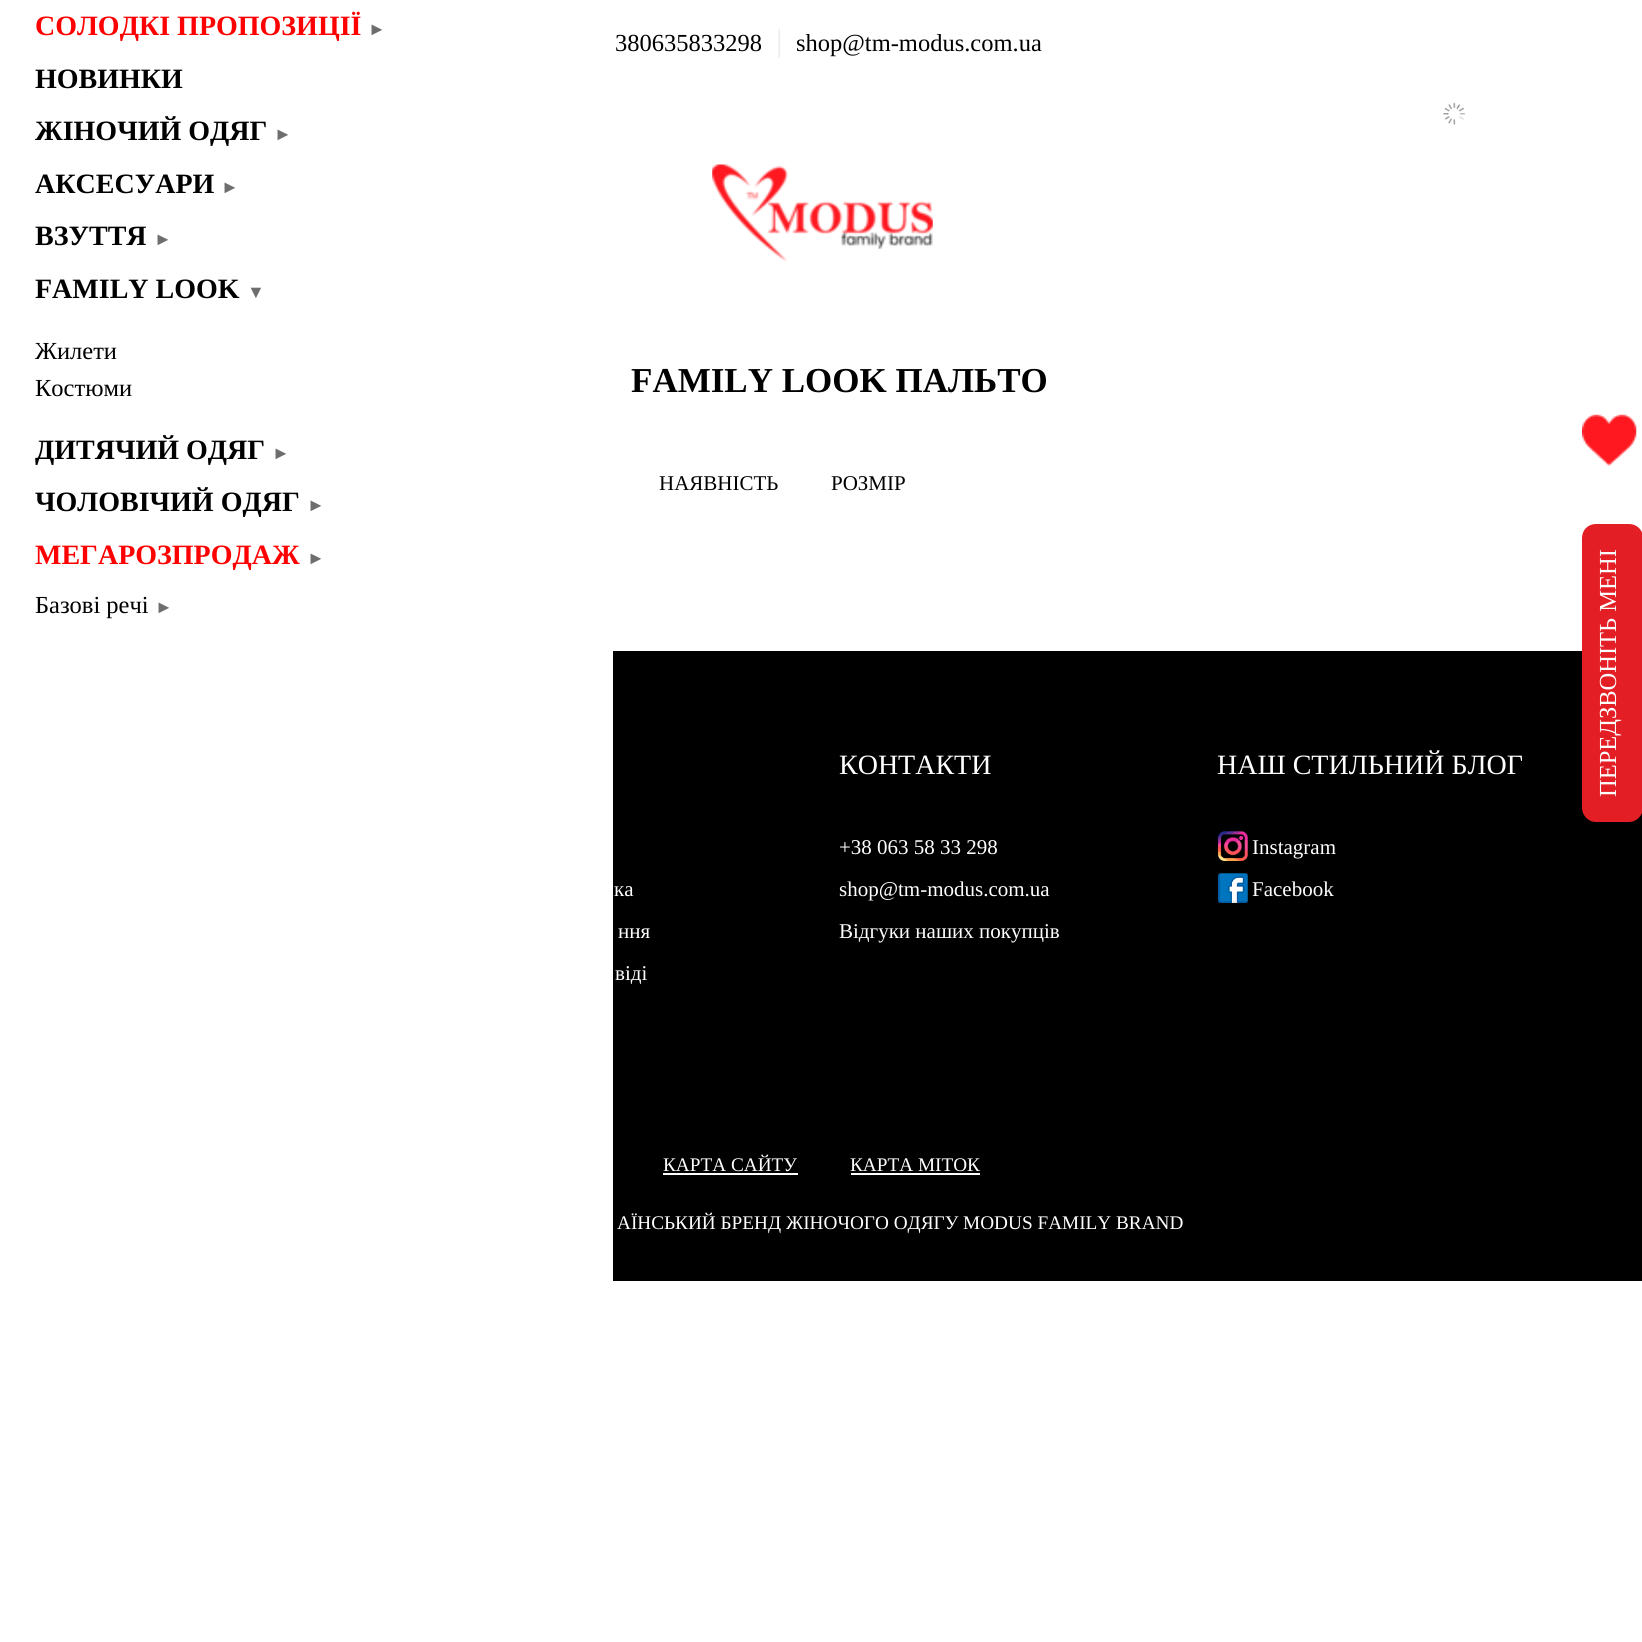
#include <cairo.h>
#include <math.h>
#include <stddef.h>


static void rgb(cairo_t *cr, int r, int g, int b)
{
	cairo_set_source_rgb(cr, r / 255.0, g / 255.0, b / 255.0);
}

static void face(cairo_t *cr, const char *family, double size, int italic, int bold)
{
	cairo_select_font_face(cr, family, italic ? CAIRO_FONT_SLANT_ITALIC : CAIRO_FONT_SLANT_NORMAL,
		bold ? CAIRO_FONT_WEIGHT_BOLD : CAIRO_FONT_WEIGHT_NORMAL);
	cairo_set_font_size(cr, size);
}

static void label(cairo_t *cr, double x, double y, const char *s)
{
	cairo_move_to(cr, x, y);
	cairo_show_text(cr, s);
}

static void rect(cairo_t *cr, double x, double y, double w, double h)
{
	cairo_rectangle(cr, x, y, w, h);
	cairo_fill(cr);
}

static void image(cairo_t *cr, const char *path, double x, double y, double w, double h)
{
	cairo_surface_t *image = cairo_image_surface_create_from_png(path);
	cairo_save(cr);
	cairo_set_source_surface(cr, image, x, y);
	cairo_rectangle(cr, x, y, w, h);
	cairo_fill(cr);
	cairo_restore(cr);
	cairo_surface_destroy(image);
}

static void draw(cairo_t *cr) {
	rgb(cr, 255, 255, 255);
	cairo_paint(cr);
	face(cr, "Liberation Serif", 28, 0, 1);
	rgb(cr, 255, 0, 0);
	label(cr, 35, 35, "СОЛОДКІ ПРОПОЗИЦІЇ");
	face(cr, "Liberation Serif", 18, 0, 1);
	rgb(cr, 110, 110, 110);
	label(cr, 368, 35, "►");
	face(cr, "Liberation Serif", 28, 0, 1);
	rgb(cr, 0, 0, 0);
	label(cr, 35, 88, "НОВИНКИ");
	label(cr, 35, 140, "ЖІНОЧИЙ ОДЯГ");
	face(cr, "Liberation Serif", 18, 0, 1);
	rgb(cr, 110, 110, 110);
	label(cr, 274, 140, "►");
	face(cr, "Liberation Serif", 28, 0, 1);
	rgb(cr, 0, 0, 0);
	label(cr, 35, 193, "АКСЕСУАРИ");
	face(cr, "Liberation Serif", 18, 0, 1);
	rgb(cr, 110, 110, 110);
	label(cr, 221, 193, "►");
	face(cr, "Liberation Serif", 28, 0, 1);
	rgb(cr, 0, 0, 0);
	label(cr, 35, 245, "ВЗУТТЯ");
	face(cr, "Liberation Serif", 18, 0, 1);
	rgb(cr, 110, 110, 110);
	label(cr, 154, 245, "►");
	face(cr, "Liberation Serif", 28, 0, 1);
	rgb(cr, 0, 0, 0);
	label(cr, 35, 298, "FAMILY LOOK");
	face(cr, "Liberation Serif", 18, 0, 1);
	rgb(cr, 110, 110, 110);
	label(cr, 247, 298, "▼");
	face(cr, "Liberation Serif", 24.5, 0, 0);
	rgb(cr, 0, 0, 0);
	label(cr, 35, 359, "Жилети");
	label(cr, 35, 396, "Костюми");
	face(cr, "Liberation Serif", 28, 0, 1);
	label(cr, 35, 459, "ДИТЯЧИЙ ОДЯГ");
	face(cr, "Liberation Serif", 18, 0, 1);
	rgb(cr, 110, 110, 110);
	label(cr, 272, 459, "►");
	face(cr, "Liberation Serif", 28, 0, 1);
	rgb(cr, 0, 0, 0);
	label(cr, 35, 511, "ЧОЛОВІЧИЙ ОДЯГ");
	face(cr, "Liberation Serif", 18, 0, 1);
	rgb(cr, 110, 110, 110);
	label(cr, 307, 511, "►");
	face(cr, "Liberation Serif", 28, 0, 1);
	rgb(cr, 255, 0, 0);
	label(cr, 35, 564, "МЕГАРОЗПРОДАЖ");
	face(cr, "Liberation Serif", 18, 0, 1);
	rgb(cr, 110, 110, 110);
	label(cr, 307, 564, "►");
	face(cr, "Liberation Serif", 24.5, 0, 0);
	rgb(cr, 0, 0, 0);
	label(cr, 35, 613, "Базові речі");
	face(cr, "Liberation Serif", 18, 0, 0);
	rgb(cr, 110, 110, 110);
	label(cr, 155, 613, "►");
	image(cr, "image0.png", 1443, 102, 22, 23);
	face(cr, "Liberation Serif", 24.5, 0, 0);
	rgb(cr, 0, 0, 0);
	label(cr, 615, 51, "380635833298");
	face(cr, "Liberation Serif", 32, 0, 0);
	rgb(cr, 237, 237, 237);
	label(cr, 776, 51, "|");
	face(cr, "Liberation Serif", 24.5, 0, 0);
	rgb(cr, 0, 0, 0);
	label(cr, 796, 51, "shop@tm-modus.com.ua");
	image(cr, "image1.png", 712, 164, 221, 97);
	face(cr, "Liberation Serif", 35, 0, 1);
	label(cr, 631, 392, "FAMILY LOOK ПАЛЬТО");
	face(cr, "Liberation Serif", 21, 0, 0);
	label(cr, 659, 490, "НАЯВНІСТЬ");
	label(cr, 831, 490, "РОЗМІР");
	rect(cr, 613, 651, 1029, 630);
	rgb(cr, 255, 255, 255);
	label(cr, 614, 896, "ка");
	label(cr, 618, 938, "ння");
	label(cr, 615, 980, "віді");
	face(cr, "Liberation Serif", 28, 0, 0);
	label(cr, 839, 774, "КОНТАКТИ");
	face(cr, "Liberation Serif", 21, 0, 0);
	label(cr, 839, 854, "+38 063 58 33 298");
	label(cr, 839, 896, "shop@tm-modus.com.ua");
	label(cr, 839, 938, "Відгуки наших покупців");
	face(cr, "Liberation Serif", 28, 0, 0);
	label(cr, 1217, 774, "НАШ СТИЛЬНИЙ БЛОГ");
	image(cr, "image2.png", 1218, 831, 30, 30);
	face(cr, "Liberation Serif", 21, 0, 0);
	label(cr, 1252, 854, "Instagram");
	image(cr, "image3.png", 1218, 873, 30, 30);
	label(cr, 1252, 896, "Facebook");
	face(cr, "Liberation Serif", 19.25, 0, 0);
	label(cr, 663, 1171, "КАРТА САЙТУ");
	rect(cr, 663, 1173, 135, 2);
	label(cr, 850, 1171, "КАРТА МІТОК");
	rect(cr, 851, 1173, 129, 2);
	label(cr, 617, 1229, "АЇНСЬКИЙ БРЕНД ЖІНОЧОГО ОДЯГУ MODUS FAMILY BRAND");
	image(cr, "image4.png", 1582, 414, 55, 52);
	rgb(cr, 227, 30, 36);
	cairo_new_path(cr);
	cairo_move_to(cr, 1582, 808);
	cairo_line_to(cr, 1582, 538);
	cairo_curve_to(cr, 1582, 530, 1588, 524, 1596, 524);
	cairo_line_to(cr, 1629, 524);
	cairo_curve_to(cr, 1637, 524, 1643, 530, 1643, 538);
	cairo_line_to(cr, 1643, 808);
	cairo_curve_to(cr, 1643, 815, 1637, 822, 1629, 822);
	cairo_line_to(cr, 1596, 822);
	cairo_curve_to(cr, 1588, 822, 1582, 815, 1582, 808);
	cairo_close_path(cr);
	cairo_fill(cr);
	face(cr, "Liberation Serif", 24.5, 0, 0);
	rgb(cr, 255, 255, 255);
	cairo_save(cr);
	cairo_translate(cr, 1616, 797);
	cairo_rotate(cr, -90 * M_PI / 180);
	label(cr, 0, 0, "ПЕРЕДЗВОНІТЬ МЕНІ");
	cairo_restore(cr);
}

int main(void) {
	cairo_surface_t *surface = cairo_image_surface_create(CAIRO_FORMAT_RGB24, 1642, 1642);
	cairo_t *cr = cairo_create(surface);
	cairo_font_options_t *options = cairo_font_options_create();
	cairo_font_options_set_hint_metrics(options, CAIRO_HINT_METRICS_OFF);
	cairo_font_options_set_hint_style(options, CAIRO_HINT_STYLE_NONE);
	cairo_set_font_options(cr, options);
	cairo_set_miter_limit(cr, 4);
	draw(cr);
	cairo_surface_write_to_png(surface, "render.png");
	cairo_font_options_destroy(options);
	cairo_destroy(cr);
	cairo_surface_destroy(surface);
	return 0;
}
